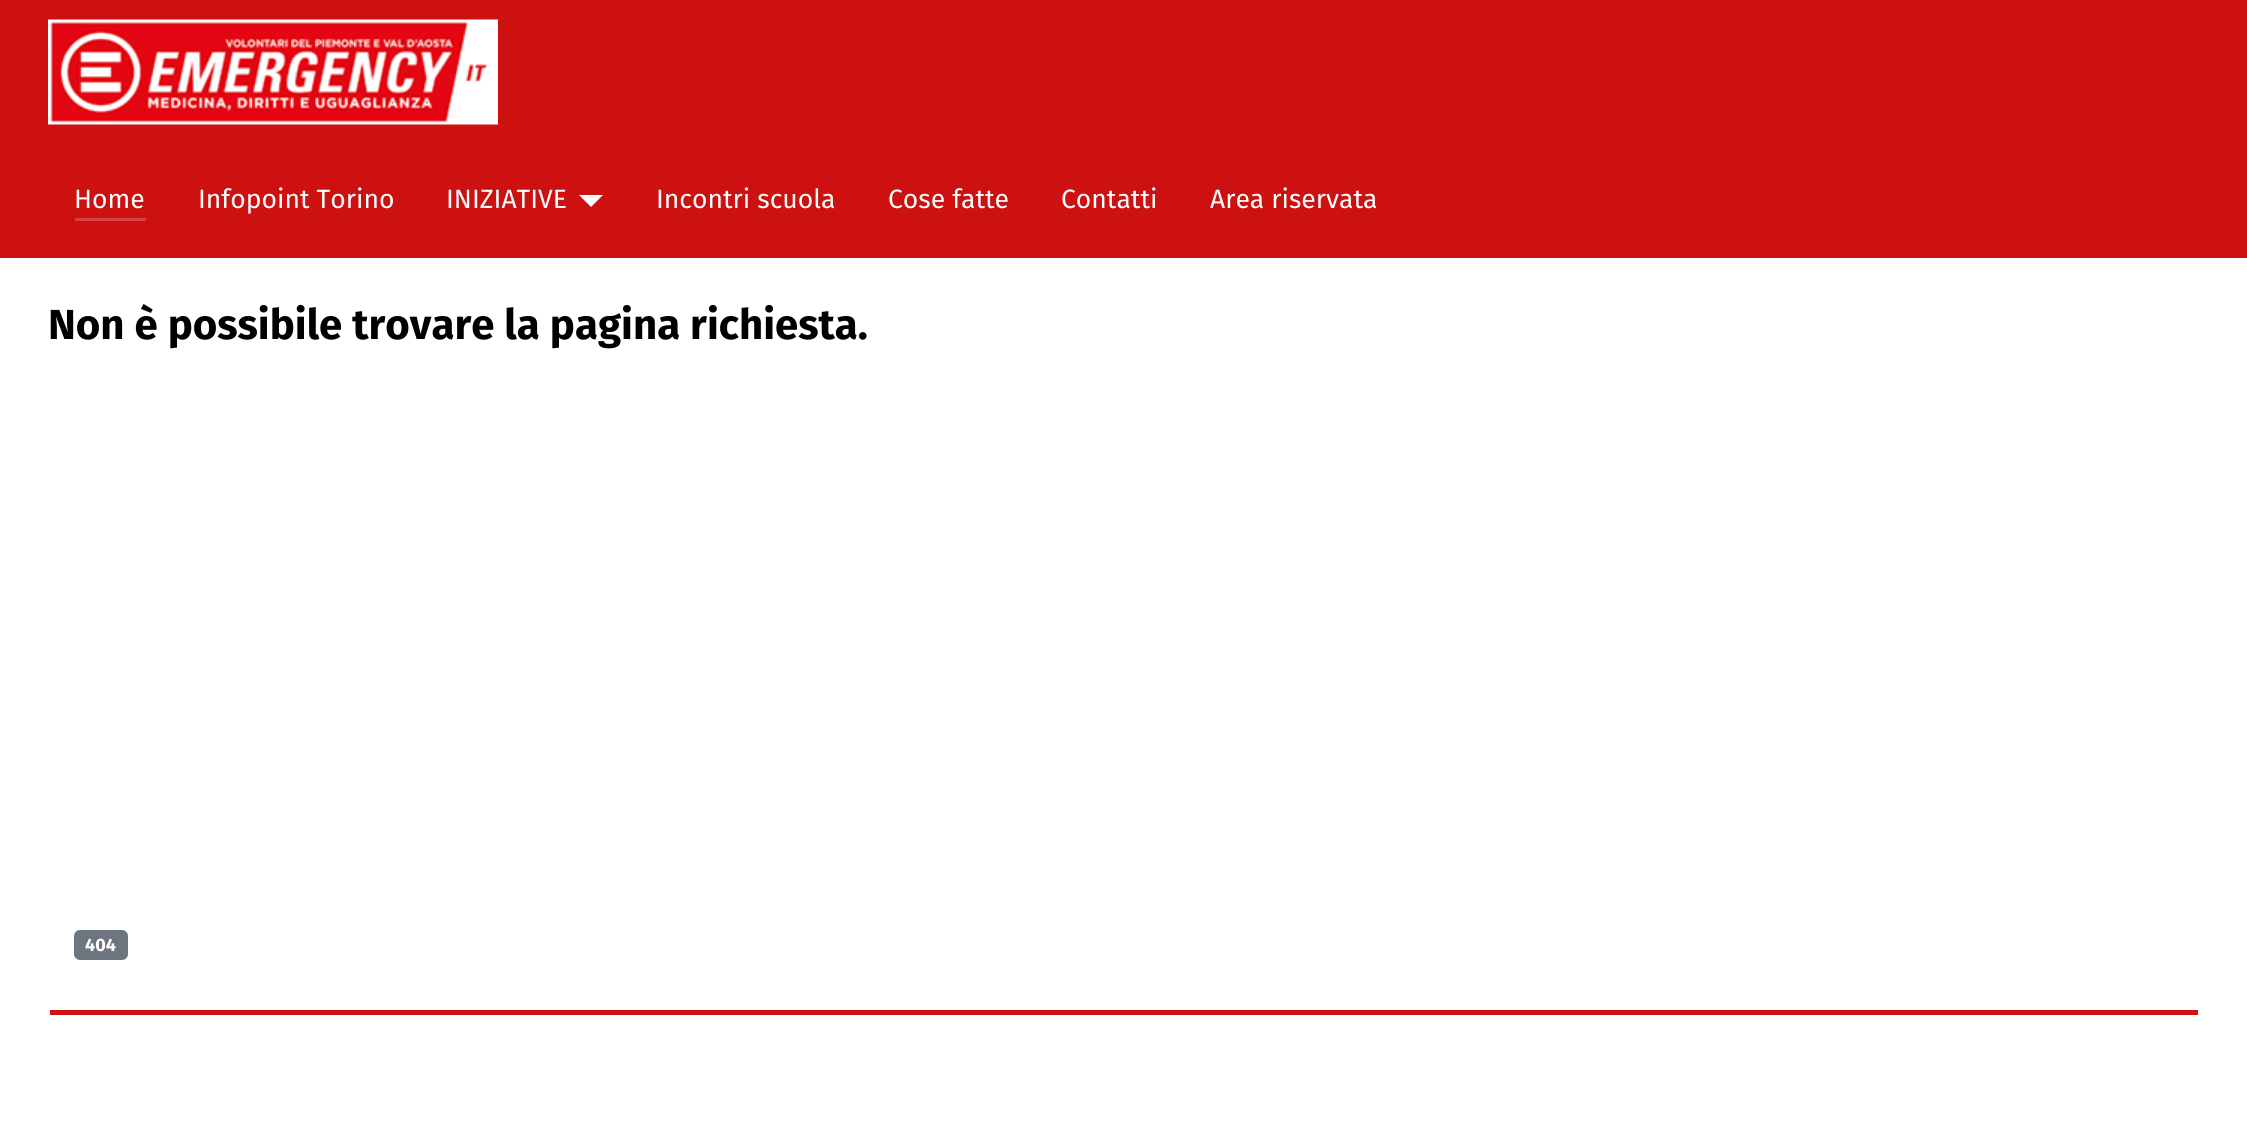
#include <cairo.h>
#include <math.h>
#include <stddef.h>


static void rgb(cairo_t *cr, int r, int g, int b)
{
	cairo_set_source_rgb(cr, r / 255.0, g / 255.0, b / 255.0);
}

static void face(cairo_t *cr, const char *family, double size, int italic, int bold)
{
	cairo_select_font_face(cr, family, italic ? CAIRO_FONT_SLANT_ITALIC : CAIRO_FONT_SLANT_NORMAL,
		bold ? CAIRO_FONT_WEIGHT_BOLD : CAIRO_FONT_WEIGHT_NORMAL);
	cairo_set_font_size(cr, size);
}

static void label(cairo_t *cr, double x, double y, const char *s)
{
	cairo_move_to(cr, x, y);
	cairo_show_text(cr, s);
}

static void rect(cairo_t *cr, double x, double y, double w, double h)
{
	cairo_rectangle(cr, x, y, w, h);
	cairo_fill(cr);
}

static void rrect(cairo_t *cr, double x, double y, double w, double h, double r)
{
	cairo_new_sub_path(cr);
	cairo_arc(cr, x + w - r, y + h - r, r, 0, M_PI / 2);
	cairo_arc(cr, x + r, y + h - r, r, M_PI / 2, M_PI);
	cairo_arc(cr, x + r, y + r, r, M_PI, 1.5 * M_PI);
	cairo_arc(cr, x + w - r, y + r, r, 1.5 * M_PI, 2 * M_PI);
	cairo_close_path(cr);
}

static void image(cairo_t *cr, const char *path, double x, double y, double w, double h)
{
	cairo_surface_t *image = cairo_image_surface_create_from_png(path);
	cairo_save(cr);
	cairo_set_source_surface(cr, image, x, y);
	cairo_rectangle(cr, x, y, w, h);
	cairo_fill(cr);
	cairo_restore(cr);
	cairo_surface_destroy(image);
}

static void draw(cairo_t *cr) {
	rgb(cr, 255, 255, 255);
	cairo_paint(cr);
	rgb(cr, 205, 17, 17);
	rect(cr, 0, 0, 2247, 258);
	image(cr, "image0.png", 48, 19, 450, 106);
	face(cr, "Fira Sans", 26.5, 0, 0);
	rgb(cr, 255, 255, 255);
	label(cr, 74, 208, "Home");
	rgb(cr, 215, 65, 65);
	rect(cr, 75, 218, 71, 3);
	rgb(cr, 255, 255, 255);
	label(cr, 198, 208, "Infopoint Torino");
	label(cr, 446, 208, "INIZIATIVE");
	cairo_new_path(cr);
	cairo_move_to(cr, 579, 195);
	cairo_line_to(cr, 603, 195);
	cairo_line_to(cr, 591, 207);
	cairo_close_path(cr);
	cairo_fill(cr);
	label(cr, 656, 208, "Incontri scuola");
	label(cr, 888, 208, "Cose fatte");
	label(cr, 1061, 208, "Contatti");
	label(cr, 1210, 208, "Area riservata");
	face(cr, "Fira Sans", 42, 0, 1);
	rgb(cr, 0, 0, 0);
	label(cr, 48, 339, "Non è possibile trovare la pagina richiesta.");
	rgb(cr, 205, 17, 17);
	rect(cr, 50, 1010, 2148, 5);
	rgb(cr, 109, 117, 126);
	rrect(cr, 74, 930, 54, 30, 6);
	cairo_fill(cr);
	face(cr, "Fira Sans", 18, 0, 1);
	rgb(cr, 255, 255, 255);
	label(cr, 85, 951, "404");
}

int main(void) {
	cairo_surface_t *surface = cairo_image_surface_create(CAIRO_FORMAT_RGB24, 2247, 1148);
	cairo_t *cr = cairo_create(surface);
	cairo_font_options_t *options = cairo_font_options_create();
	cairo_font_options_set_hint_metrics(options, CAIRO_HINT_METRICS_OFF);
	cairo_font_options_set_hint_style(options, CAIRO_HINT_STYLE_NONE);
	cairo_set_font_options(cr, options);
	cairo_set_miter_limit(cr, 4);
	draw(cr);
	cairo_surface_write_to_png(surface, "render.png");
	cairo_font_options_destroy(options);
	cairo_destroy(cr);
	cairo_surface_destroy(surface);
	return 0;
}
